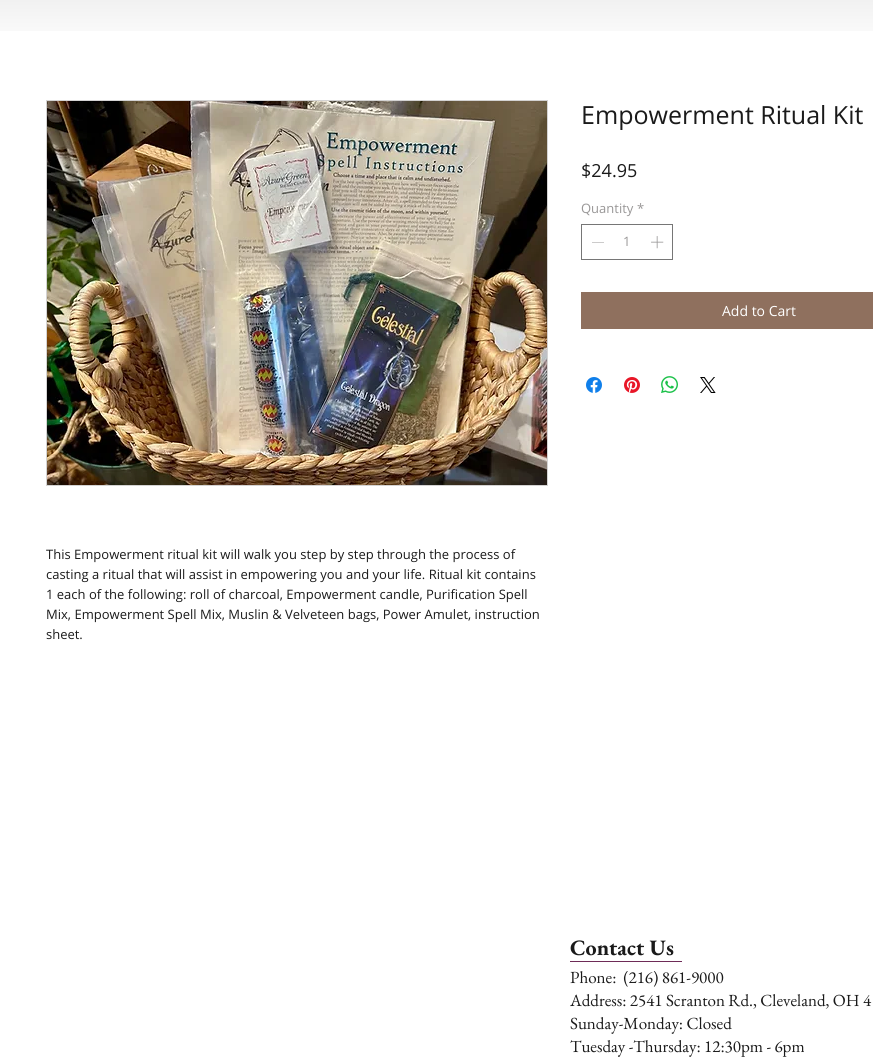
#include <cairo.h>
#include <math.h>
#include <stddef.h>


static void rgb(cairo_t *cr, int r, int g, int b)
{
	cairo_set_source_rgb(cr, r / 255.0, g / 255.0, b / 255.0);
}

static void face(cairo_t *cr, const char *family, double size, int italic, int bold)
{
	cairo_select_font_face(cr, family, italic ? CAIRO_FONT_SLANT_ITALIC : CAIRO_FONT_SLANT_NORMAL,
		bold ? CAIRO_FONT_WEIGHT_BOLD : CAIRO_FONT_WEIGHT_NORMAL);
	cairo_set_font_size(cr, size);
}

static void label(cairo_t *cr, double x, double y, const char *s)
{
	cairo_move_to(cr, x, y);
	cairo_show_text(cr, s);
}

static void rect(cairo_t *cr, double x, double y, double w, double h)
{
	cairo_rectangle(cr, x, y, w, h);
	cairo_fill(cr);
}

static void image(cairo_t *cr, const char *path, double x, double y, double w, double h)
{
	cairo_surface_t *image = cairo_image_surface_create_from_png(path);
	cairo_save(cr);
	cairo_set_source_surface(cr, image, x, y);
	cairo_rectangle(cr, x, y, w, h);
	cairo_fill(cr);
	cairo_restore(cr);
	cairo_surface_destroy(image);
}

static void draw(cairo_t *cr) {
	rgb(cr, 255, 255, 255);
	cairo_paint(cr);
	image(cr, "image0.png", 0, 0, 873, 31);
	face(cr, "Open Sans", 25, 0, 0);
	rgb(cr, 26, 26, 26);
	label(cr, 581, 124, "Empowerment Ritual Kit");
	face(cr, "Open Sans", 18, 0, 0);
	label(cr, 581, 177, "$24.95");
	face(cr, "Open Sans", 13, 0, 0);
	rgb(cr, 153, 151, 151);
	label(cr, 581, 213, "Quantity");
	label(cr, 637, 213, "*");
	cairo_rectangle(cr, 581.5, 224.5, 91, 35);
	rgb(cr, 118, 118, 118);
	cairo_set_line_width(cr, 1);
	cairo_stroke(cr);
	rgb(cr, 153, 151, 151);
	cairo_set_fill_rule(cr, CAIRO_FILL_RULE_EVEN_ODD);
	cairo_new_path(cr);
	cairo_move_to(cr, 604, 242);
	cairo_line_to(cr, 604, 242.5);
	cairo_line_to(cr, 592, 242.5);
	cairo_line_to(cr, 592, 242);
	cairo_close_path(cr);
	cairo_fill(cr);
	label(cr, 623, 246, "1");
	image(cr, "image1.png", 651, 236, 13, 13);
	rgb(cr, 143, 112, 94);
	rect(cr, 581, 292, 292, 37);
	face(cr, "Open Sans", 14, 0, 0);
	rgb(cr, 255, 255, 255);
	label(cr, 722, 316, "Add to Cart");
	image(cr, "image2.png", 586, 377, 16, 16);
	image(cr, "image3.png", 624, 377, 16, 16);
	image(cr, "image4.png", 661, 376, 17, 17);
	image(cr, "image5.png", 700, 377, 16, 16);
	cairo_rectangle(cr, 46.5, 100.5, 501, 385);
	rgb(cr, 212, 211, 211);
	cairo_stroke(cr);
	image(cr, "image6.png", 47, 101, 500, 384);
	face(cr, "Open Sans", 13, 0, 0);
	rgb(cr, 26, 26, 26);
	label(cr, 46, 559, "This Empowerment ritual kit will walk you step by step through the process of");
	label(cr, 46, 579, "casting a ritual that will assist in empowering you and your life. Ritual kit contains");
	label(cr, 46, 599, "1 each of the following: roll of charcoal, Empowerment candle, Purification Spell");
	label(cr, 46, 619, "Mix, Empowerment Spell Mix, Muslin & Velveteen bags, Power Amulet, instruction");
	label(cr, 46, 639, "sheet.");
	face(cr, "EB Garamond", 22, 0, 1);
	label(cr, 570, 955, "Contact Us");
	rgb(cr, 110, 43, 87);
	rect(cr, 570, 961, 112, 1);
	face(cr, "EB Garamond", 17, 0, 0);
	rgb(cr, 26, 26, 26);
	label(cr, 570, 983, "Phone:  (216) 861-9000");
	label(cr, 570, 1006, "Address: 2541 Scranton Rd., Cleveland, OH 4");
	label(cr, 570, 1029, "Sunday-Monday: Closed");
	label(cr, 570, 1052, "Tuesday -Thursday: 12:30pm - 6pm");
}

int main(void) {
	cairo_surface_t *surface = cairo_image_surface_create(CAIRO_FORMAT_RGB24, 873, 1063);
	cairo_t *cr = cairo_create(surface);
	cairo_font_options_t *options = cairo_font_options_create();
	cairo_font_options_set_hint_metrics(options, CAIRO_HINT_METRICS_OFF);
	cairo_font_options_set_hint_style(options, CAIRO_HINT_STYLE_NONE);
	cairo_set_font_options(cr, options);
	cairo_set_miter_limit(cr, 4);
	draw(cr);
	cairo_surface_write_to_png(surface, "render.png");
	cairo_font_options_destroy(options);
	cairo_destroy(cr);
	cairo_surface_destroy(surface);
	return 0;
}
